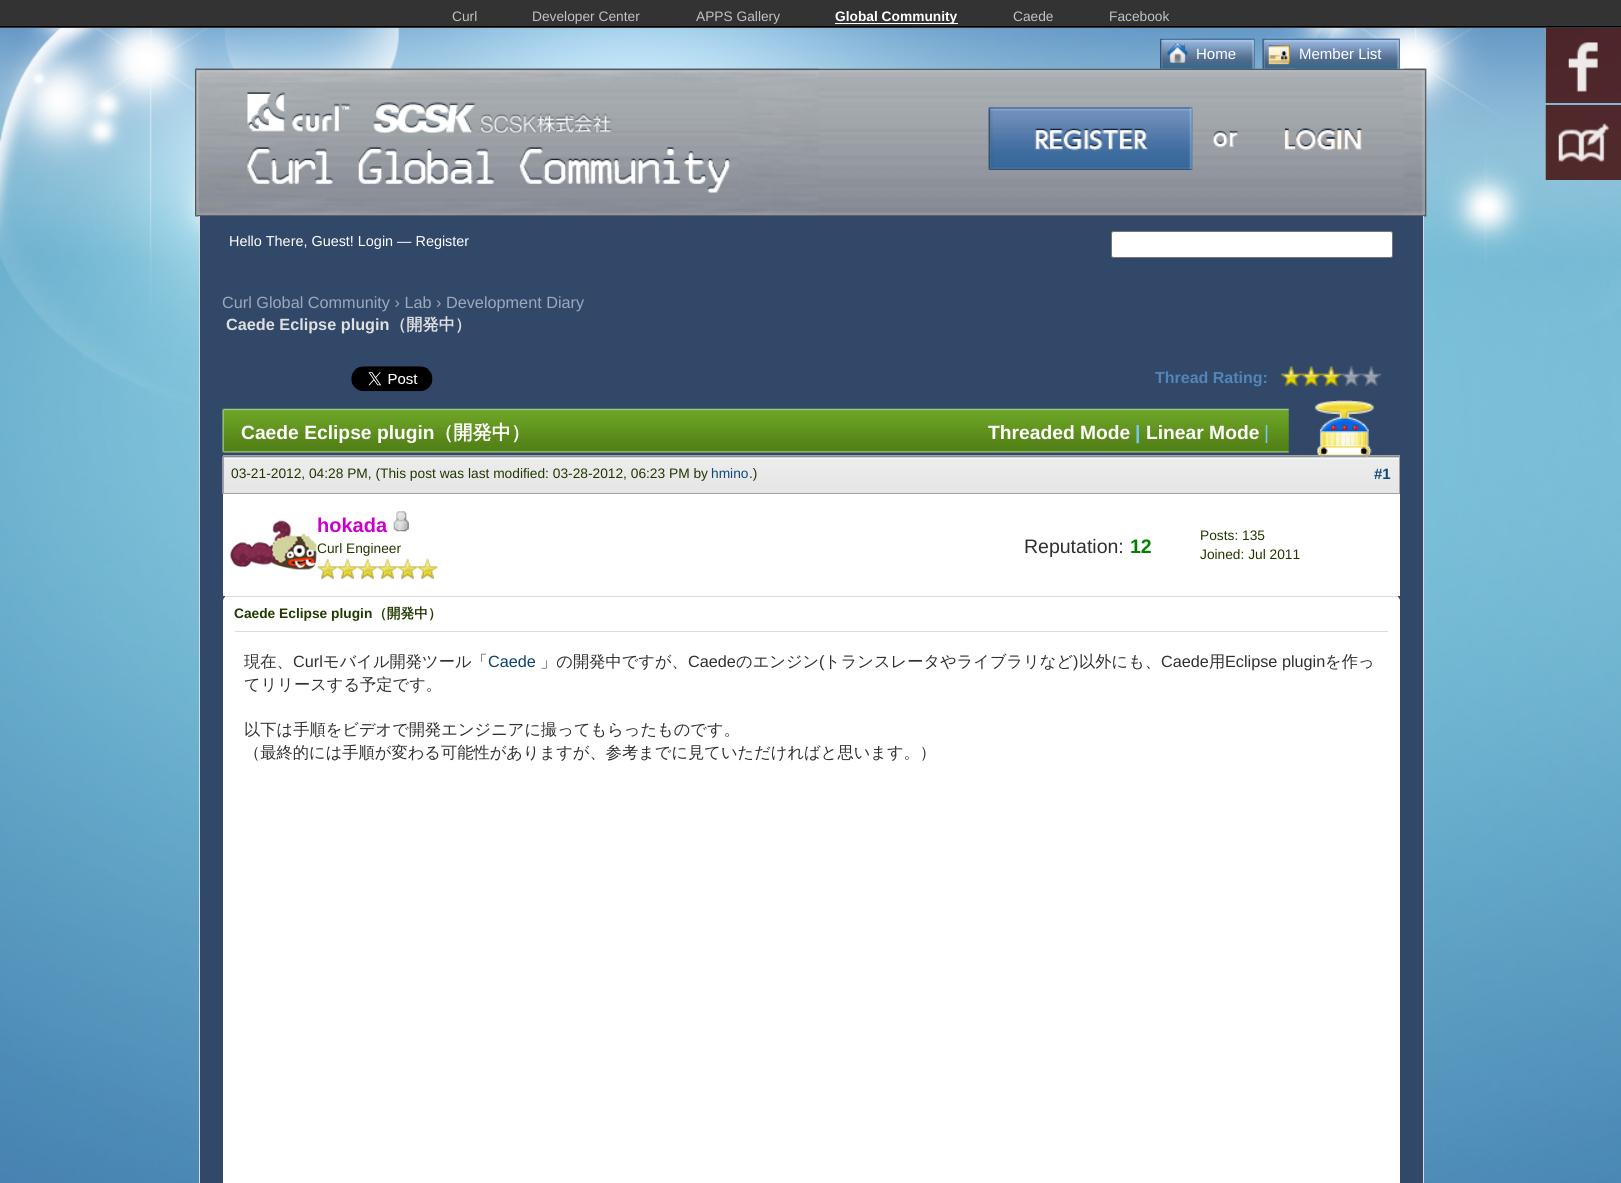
#include <cairo.h>
#include <math.h>
#include <stddef.h>


static void rgb(cairo_t *cr, int r, int g, int b)
{
	cairo_set_source_rgb(cr, r / 255.0, g / 255.0, b / 255.0);
}

static void face(cairo_t *cr, const char *family, double size, int italic, int bold)
{
	cairo_select_font_face(cr, family, italic ? CAIRO_FONT_SLANT_ITALIC : CAIRO_FONT_SLANT_NORMAL,
		bold ? CAIRO_FONT_WEIGHT_BOLD : CAIRO_FONT_WEIGHT_NORMAL);
	cairo_set_font_size(cr, size);
}

static void label(cairo_t *cr, double x, double y, const char *s)
{
	cairo_move_to(cr, x, y);
	cairo_show_text(cr, s);
}

static void rect(cairo_t *cr, double x, double y, double w, double h)
{
	cairo_rectangle(cr, x, y, w, h);
	cairo_fill(cr);
}

static void rrect(cairo_t *cr, double x, double y, double w, double h, double r)
{
	cairo_new_sub_path(cr);
	cairo_arc(cr, x + w - r, y + h - r, r, 0, M_PI / 2);
	cairo_arc(cr, x + r, y + h - r, r, M_PI / 2, M_PI);
	cairo_arc(cr, x + r, y + r, r, M_PI, 1.5 * M_PI);
	cairo_arc(cr, x + w - r, y + r, r, 1.5 * M_PI, 2 * M_PI);
	cairo_close_path(cr);
}

static void image(cairo_t *cr, const char *path, double x, double y, double w, double h)
{
	cairo_surface_t *image = cairo_image_surface_create_from_png(path);
	cairo_save(cr);
	cairo_set_source_surface(cr, image, x, y);
	cairo_rectangle(cr, x, y, w, h);
	cairo_fill(cr);
	cairo_restore(cr);
	cairo_surface_destroy(image);
}

static void draw(cairo_t *cr) {
	rgb(cr, 255, 255, 255);
	cairo_paint(cr);
	image(cr, "image0.png", 0, 28, 1621, 1155);
	rgb(cr, 51, 51, 51);
	rect(cr, 0, 0, 1621, 28);
	rgb(cr, 0, 0, 0);
	rect(cr, 0, 26, 1621, 1);
	face(cr, "Liberation Sans", 13.75, 0, 0);
	rgb(cr, 194, 194, 194);
	label(cr, 452, 21, "Curl");
	label(cr, 532, 21, "Developer Center");
	label(cr, 696, 21, "APPS Gallery");
	rgb(cr, 255, 255, 255);
	rect(cr, 835, 23, 123, 1);
	face(cr, "Liberation Sans", 13.75, 0, 1);
	label(cr, 835, 21, "Global Community");
	face(cr, "Liberation Sans", 13.75, 0, 0);
	rgb(cr, 194, 194, 194);
	label(cr, 1013, 21, "Caede");
	label(cr, 1109, 21, "Facebook");
	image(cr, "image7.png", 195, 68, 1232, 149);
	image(cr, "image1.png", 1160, 38, 95, 31);
	image(cr, "image2.png", 1167, 43, 21, 20);
	image(cr, "image3.png", 1192, 38, 63, 31);
	face(cr, "Liberation Sans", 15, 0, 0);
	rgb(cr, 255, 255, 255);
	label(cr, 1196, 59, "Home");
	image(cr, "image4.png", 1262, 38, 138, 31);
	image(cr, "image5.png", 1268, 45, 22, 20);
	image(cr, "image6.png", 1295, 38, 105, 31);
	label(cr, 1299, 59, "Member List");
	image(cr, "image8.png", 195, 68, 624, 149);
	image(cr, "image9.png", 1403, 68, 24, 149);
	image(cr, "image10.png", 988, 107, 374, 63);
	image(cr, "image11.png", 988, 107, 204, 63);
	image(cr, "image12.png", 1284, 128, 78, 23);
	cairo_set_source_rgba(cr, 0.29, 0.098, 0.098, 0.9);
	rect(cr, 1545, 28, 76, 75);
	cairo_set_source_rgba(cr, 0.616, 0.616, 0.616, 0.9);
	rect(cr, 1545, 28, 1, 75);
	image(cr, "image13.png", 1568, 42, 30, 50);
	cairo_set_source_rgba(cr, 0.29, 0.098, 0.098, 0.9);
	rect(cr, 1546, 105, 75, 75);
	rgb(cr, 149, 145, 146);
	rect(cr, 1545, 105, 1, 75);
	image(cr, "image14.png", 1558, 123, 51, 39);
	rgb(cr, 50, 72, 105);
	rect(cr, 200, 216, 1223, 967);
	rgb(cr, 211, 219, 231);
	rect(cr, 1423, 216, 1, 967);
	rect(cr, 199, 216, 1, 967);
	face(cr, "Liberation Sans", 14.4, 0, 0);
	rgb(cr, 255, 255, 255);
	label(cr, 229, 246, "Hello There, Guest! Login — Register");
	rrect(cr, 1111.5, 231.5, 281, 26, 2);
	cairo_fill_preserve(cr);
	rgb(cr, 118, 118, 118);
	cairo_set_line_width(cr, 1);
	cairo_stroke(cr);
	face(cr, "Liberation Sans", 16.25, 0, 0);
	rgb(cr, 156, 169, 187);
	label(cr, 222, 308, "Curl Global Community › Lab › Development Diary");
	face(cr, "Liberation Sans", 16.25, 0, 1);
	rgb(cr, 223, 223, 223);
	label(cr, 226, 330, "Caede Eclipse plugin");
	face(cr, "WenQuanYi Zen Hei", 16.25, 0, 1);
	label(cr, 390, 330, "（開発中）");
	image(cr, "image15.png", 351, 366, 82, 26);
	face(cr, "Liberation Sans", 16, 0, 1);
	rgb(cr, 82, 134, 184);
	label(cr, 1155, 383, "Thread Rating:");
	image(cr, "image16.png", 1281, 366, 101, 21);
	image(cr, "image17.png", 1281, 366, 61, 20);
	image(cr, "image18.png", 222, 408, 1067, 45);
	image(cr, "image19.png", 1288, 400, 112, 57);
	face(cr, "Liberation Sans", 19.25, 0, 1);
	rgb(cr, 255, 255, 255);
	label(cr, 241, 439, "Caede Eclipse plugin");
	face(cr, "WenQuanYi Zen Hei", 19.25, 0, 1);
	label(cr, 434, 439, "（開発中）");
	face(cr, "Liberation Sans", 19.25, 0, 1);
	label(cr, 988, 439, "Threaded Mode");
	rgb(cr, 123, 197, 242);
	label(cr, 1135, 439, "|");
	rgb(cr, 255, 255, 255);
	label(cr, 1146, 439, "Linear Mode");
	face(cr, "Liberation Sans", 19.25, 0, 0);
	rgb(cr, 123, 197, 242);
	label(cr, 1264, 439, "|");
	image(cr, "image20.png", 222, 456, 1177, 38);
	cairo_rectangle(cr, 223.5, 455.5, 1176, 38);
	rgb(cr, 162, 162, 162);
	cairo_stroke(cr);
	face(cr, "Liberation Sans", 13.75, 0, 0);
	rgb(cr, 33, 57, 0);
	label(cr, 231, 478, "03-21-2012, 04:28 PM, (This post was last modified: 03-28-2012, 06:23 PM by");
	rgb(cr, 17, 72, 121);
	label(cr, 711, 478, "hmino");
	rgb(cr, 33, 57, 0);
	label(cr, 749, 478, ".)");
	face(cr, "Liberation Sans", 15, 0, 1);
	rgb(cr, 17, 72, 121);
	label(cr, 1374, 479, "#1");
	rgb(cr, 255, 255, 255);
	rect(cr, 223, 494, 1177, 102);
	image(cr, "image21.png", 230, 520, 87, 50);
	face(cr, "Liberation Sans", 20, 0, 1);
	rgb(cr, 204, 0, 204);
	label(cr, 317, 532, "hokada");
	image(cr, "image22.png", 393, 511, 16, 21);
	face(cr, "Liberation Sans", 13.75, 0, 0);
	rgb(cr, 33, 57, 0);
	label(cr, 317, 553, "Curl Engineer");
	image(cr, "image23.png", 317, 558, 21, 21);
	image(cr, "image24.png", 337, 558, 21, 21);
	image(cr, "image24.png", 357, 558, 21, 21);
	image(cr, "image24.png", 377, 558, 21, 21);
	image(cr, "image24.png", 397, 558, 21, 21);
	image(cr, "image25.png", 417, 558, 21, 21);
	face(cr, "Liberation Sans", 19.5, 0, 0);
	rgb(cr, 48, 48, 48);
	label(cr, 1024, 553, "Reputation:");
	face(cr, "Liberation Sans", 19.5, 0, 1);
	rgb(cr, 0, 128, 0);
	label(cr, 1130, 553, "12");
	face(cr, "Liberation Sans", 13.75, 0, 0);
	rgb(cr, 33, 57, 0);
	label(cr, 1200, 540, "Posts: 135");
	label(cr, 1200, 559, "Joined: Jul 2011");
	rgb(cr, 255, 255, 255);
	rrect(cr, 223, 596, 1177, 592, 5);
	cairo_fill(cr);
	rgb(cr, 219, 219, 219);
	rect(cr, 225, 596, 1173, 1);
	face(cr, "Liberation Sans", 13.75, 0, 1);
	rgb(cr, 33, 57, 0);
	label(cr, 234, 618, "Caede Eclipse plugin");
	face(cr, "WenQuanYi Zen Hei", 13.75, 0, 1);
	label(cr, 373, 618, "（開発中）");
	rgb(cr, 219, 219, 219);
	rect(cr, 235, 631, 1153, 1);
	face(cr, "WenQuanYi Zen Hei Medium", 16.25, 0, 0);
	rgb(cr, 48, 48, 48);
	label(cr, 244, 667, "現在、");
	face(cr, "Liberation Sans", 16.25, 0, 0);
	label(cr, 293, 667, "Curl");
	face(cr, "WenQuanYi Zen Hei Medium", 16.25, 0, 0);
	label(cr, 323, 667, "モバイル開発ツール「");
	face(cr, "Liberation Sans", 16.25, 0, 0);
	rgb(cr, 14, 66, 112);
	label(cr, 488, 667, "Caede");
	face(cr, "WenQuanYi Zen Hei Medium", 16.25, 0, 0);
	rgb(cr, 48, 48, 48);
	label(cr, 540, 667, "」の開発中ですが、");
	face(cr, "Liberation Sans", 16.25, 0, 0);
	label(cr, 688, 667, "Caede");
	face(cr, "WenQuanYi Zen Hei Medium", 16.25, 0, 0);
	label(cr, 736, 667, "のエンジン");
	face(cr, "Liberation Sans", 16.25, 0, 0);
	label(cr, 819, 667, "(");
	face(cr, "WenQuanYi Zen Hei Medium", 16.25, 0, 0);
	label(cr, 824, 667, "トランスレータやライブラリなど");
	face(cr, "Liberation Sans", 16.25, 0, 0);
	label(cr, 1073, 667, ")");
	face(cr, "WenQuanYi Zen Hei Medium", 16.25, 0, 0);
	label(cr, 1079, 667, "以外にも、");
	face(cr, "Liberation Sans", 16.25, 0, 0);
	label(cr, 1161, 667, "Caede");
	face(cr, "WenQuanYi Zen Hei Medium", 16.25, 0, 0);
	label(cr, 1209, 667, "用");
	face(cr, "Liberation Sans", 16.25, 0, 0);
	label(cr, 1225, 667, "Eclipse plugin");
	face(cr, "WenQuanYi Zen Hei Medium", 16.25, 0, 0);
	label(cr, 1325, 667, "を作っ");
	label(cr, 244, 690, "てリリースする予定です。");
	label(cr, 244, 735, "以下は手順をビデオで開発エンジニアに撮ってもらったものです。");
	label(cr, 244, 758, "（最終的には手順が変わる可能性がありますが、参考までに見ていただければと思います。）");
}

int main(void) {
	cairo_surface_t *surface = cairo_image_surface_create(CAIRO_FORMAT_RGB24, 1621, 1183);
	cairo_t *cr = cairo_create(surface);
	cairo_font_options_t *options = cairo_font_options_create();
	cairo_font_options_set_hint_metrics(options, CAIRO_HINT_METRICS_OFF);
	cairo_font_options_set_hint_style(options, CAIRO_HINT_STYLE_NONE);
	cairo_set_font_options(cr, options);
	cairo_set_miter_limit(cr, 4);
	draw(cr);
	cairo_surface_write_to_png(surface, "render.png");
	cairo_font_options_destroy(options);
	cairo_destroy(cr);
	cairo_surface_destroy(surface);
	return 0;
}
